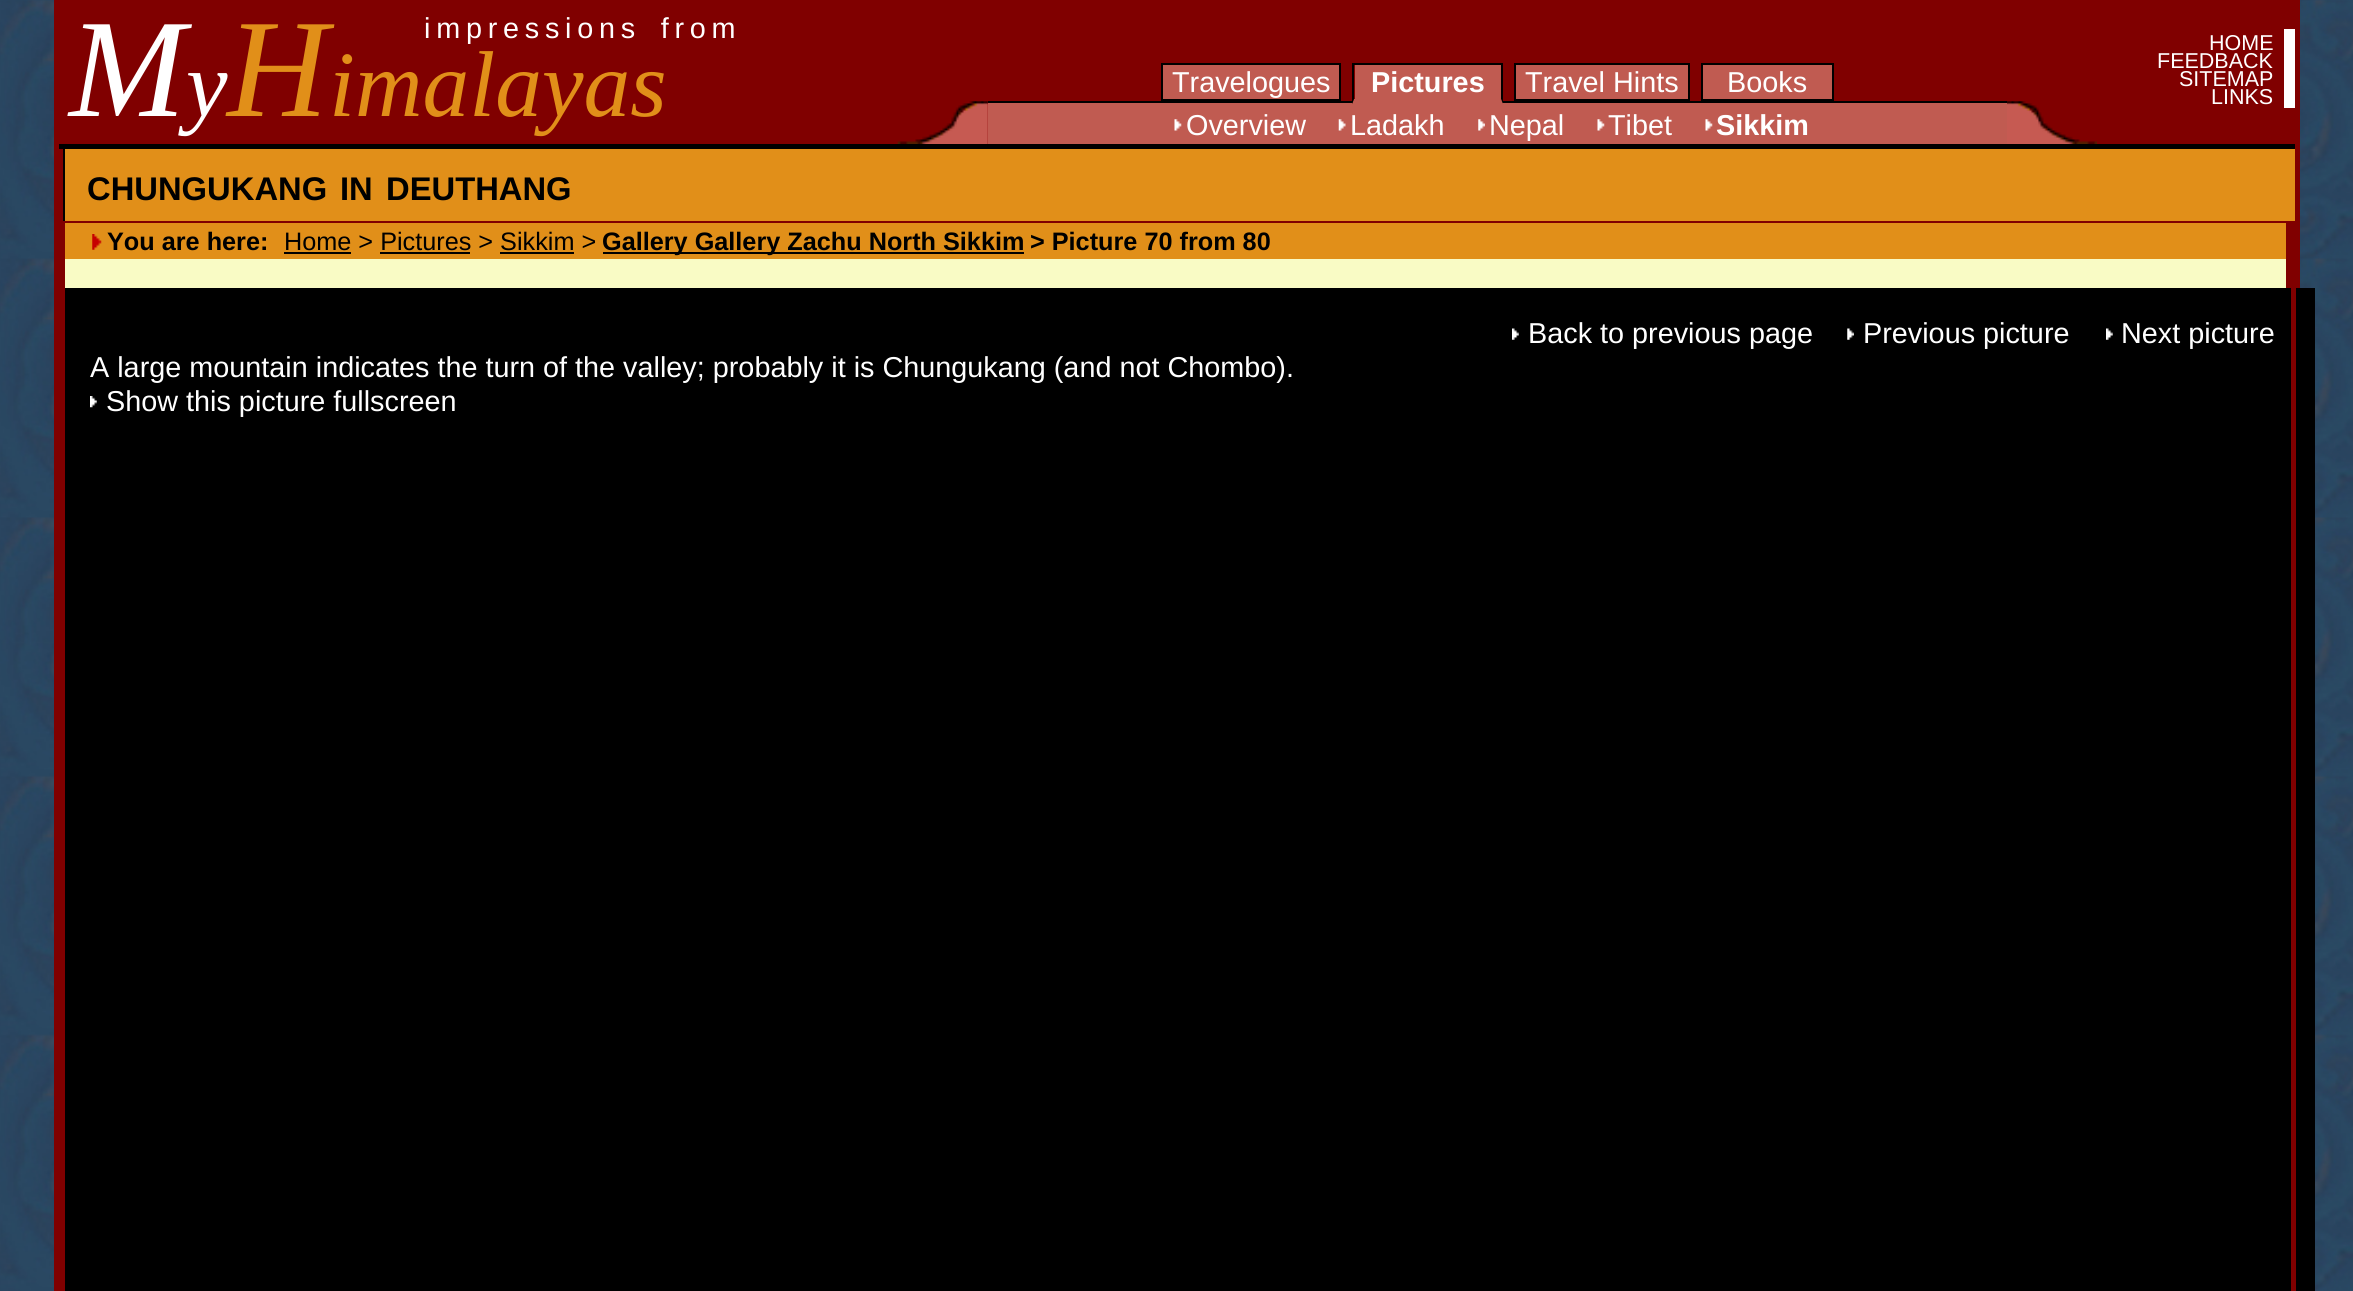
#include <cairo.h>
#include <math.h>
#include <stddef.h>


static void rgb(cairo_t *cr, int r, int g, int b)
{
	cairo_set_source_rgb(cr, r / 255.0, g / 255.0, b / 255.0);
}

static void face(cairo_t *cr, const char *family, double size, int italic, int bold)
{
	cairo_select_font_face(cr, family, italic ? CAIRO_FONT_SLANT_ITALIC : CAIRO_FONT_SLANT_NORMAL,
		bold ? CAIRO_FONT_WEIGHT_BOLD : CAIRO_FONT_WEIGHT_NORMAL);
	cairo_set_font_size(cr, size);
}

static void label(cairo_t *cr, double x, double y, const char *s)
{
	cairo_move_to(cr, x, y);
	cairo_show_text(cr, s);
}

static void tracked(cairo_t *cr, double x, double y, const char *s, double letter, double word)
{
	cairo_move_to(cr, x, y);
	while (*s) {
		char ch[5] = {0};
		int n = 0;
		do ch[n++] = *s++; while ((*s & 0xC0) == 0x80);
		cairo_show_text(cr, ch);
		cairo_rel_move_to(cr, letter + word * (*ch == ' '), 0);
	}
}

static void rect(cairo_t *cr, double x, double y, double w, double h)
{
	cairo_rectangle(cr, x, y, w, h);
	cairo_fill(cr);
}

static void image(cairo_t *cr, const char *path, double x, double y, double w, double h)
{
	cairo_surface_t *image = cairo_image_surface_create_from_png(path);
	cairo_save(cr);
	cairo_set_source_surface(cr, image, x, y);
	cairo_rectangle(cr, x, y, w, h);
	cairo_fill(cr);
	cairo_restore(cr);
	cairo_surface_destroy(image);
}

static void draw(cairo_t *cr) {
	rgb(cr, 255, 255, 255);
	cairo_paint(cr);
	image(cr, "image0.png", 0, 0, 2353, 1291);
	rgb(cr, 128, 0, 0);
	rect(cr, 2295, 0, 5, 288);
	rect(cr, 54, 0, 5, 1291);
	rect(cr, 59, 0, 2236, 144);
	face(cr, "Liberation Sans", 28.8, 0, 0);
	rgb(cr, 255, 255, 255);
	tracked(cr, 424, 38, "impressions from", 5.75, 6);
	face(cr, "Liberation Serif", 140, 1, 0);
	label(cr, 69, 116, "M");
	face(cr, "Liberation Serif", 93.5, 1, 0);
	label(cr, 186, 116, "y");
	face(cr, "Liberation Serif", 140, 1, 0);
	rgb(cr, 225, 143, 25);
	label(cr, 227, 116, "H");
	face(cr, "Liberation Serif", 93.5, 1, 0);
	label(cr, 329, 116, "imalayas");
	rgb(cr, 192, 91, 81);
	cairo_rectangle(cr, 1162, 64, 178, 36);
	cairo_fill_preserve(cr);
	rgb(cr, 0, 0, 0);
	cairo_stroke(cr);
	face(cr, "Liberation Sans", 28.8, 0, 0);
	rgb(cr, 255, 255, 255);
	label(cr, 1172, 92, "Travelogues");
	rgb(cr, 192, 91, 81);
	rect(cr, 1355, 65, 146, 34);
	face(cr, "Liberation Sans", 28.8, 0, 1);
	rgb(cr, 255, 255, 255);
	label(cr, 1371, 92, "Pictures");
	rgb(cr, 0, 0, 0);
	rect(cr, 1352, 63, 151, 2);
	rgb(cr, 192, 91, 81);
	rect(cr, 988, 103, 1019, 41);
	rgb(cr, 0, 0, 0);
	rect(cr, 988, 101, 1019, 2);
	cairo_new_path(cr);
	cairo_move_to(cr, 1503, 63);
	cairo_line_to(cr, 1503, 104);
	cairo_line_to(cr, 1501, 99);
	cairo_line_to(cr, 1501, 65);
	cairo_close_path(cr);
	cairo_fill(cr);
	rgb(cr, 192, 91, 81);
	cairo_new_path(cr);
	cairo_move_to(cr, 1503, 104);
	cairo_line_to(cr, 1352, 104);
	cairo_line_to(cr, 1354, 99);
	cairo_line_to(cr, 1501, 99);
	cairo_close_path(cr);
	cairo_fill(cr);
	rgb(cr, 0, 0, 0);
	cairo_new_path(cr);
	cairo_move_to(cr, 1352, 104);
	cairo_line_to(cr, 1352, 63);
	cairo_line_to(cr, 1354, 65);
	cairo_line_to(cr, 1354, 99);
	cairo_close_path(cr);
	cairo_fill(cr);
	rgb(cr, 192, 91, 81);
	cairo_rectangle(cr, 1515, 64, 174, 36);
	cairo_fill_preserve(cr);
	rgb(cr, 0, 0, 0);
	cairo_stroke(cr);
	face(cr, "Liberation Sans", 28.8, 0, 0);
	rgb(cr, 255, 255, 255);
	label(cr, 1525, 92, "Travel Hints");
	rgb(cr, 192, 91, 81);
	cairo_rectangle(cr, 1702, 64, 131, 36);
	cairo_fill_preserve(cr);
	rgb(cr, 0, 0, 0);
	cairo_stroke(cr);
	rgb(cr, 255, 255, 255);
	label(cr, 1727, 92, "Books");
	image(cr, "image1.png", 897, 101, 91, 43);
	image(cr, "image2.png", 1174, 119, 8, 12);
	label(cr, 1186, 135, "Overview");
	image(cr, "image3.png", 1338, 119, 8, 12);
	label(cr, 1350, 135, "Ladakh");
	image(cr, "image4.png", 1478, 119, 7, 12);
	label(cr, 1489, 135, "Nepal");
	image(cr, "image2.png", 1597, 119, 8, 12);
	label(cr, 1608, 135, "Tibet");
	image(cr, "image2.png", 1705, 119, 8, 12);
	face(cr, "Liberation Sans", 28.8, 0, 1);
	label(cr, 1716, 135, "Sikkim");
	image(cr, "image5.png", 2007, 101, 90, 43);
	face(cr, "Liberation Sans", 21.5, 0, 0);
	label(cr, 2209, 50, "HOME");
	rect(cr, 2284, 29, 11, 79);
	label(cr, 2157, 68, "FEEDBACK");
	label(cr, 2179, 86, "SITEMAP");
	label(cr, 2211, 104, "LINKS");
	rgb(cr, 0, 0, 0);
	rect(cr, 59, 144, 2236, 5);
	rgb(cr, 128, 0, 0);
	rect(cr, 59, 149, 4, 1142);
	rgb(cr, 225, 143, 25);
	rect(cr, 65, 149, 2230, 72);
	rgb(cr, 0, 0, 0);
	rect(cr, 63, 149, 2, 72);
	face(cr, "Liberation Sans", 32.75, 0, 1);
	label(cr, 87, 200, "CHUNGUKANG");
	label(cr, 340, 200, "IN");
	label(cr, 386, 200, "DEUTHANG");
	rgb(cr, 249, 251, 197);
	rect(cr, 65, 259, 2221, 29);
	rgb(cr, 128, 0, 0);
	rect(cr, 2286, 221, 5, 67);
	rect(cr, 63, 221, 2, 1070);
	rect(cr, 65, 221, 2221, 2);
	rgb(cr, 225, 143, 25);
	rect(cr, 65, 223, 2221, 36);
	image(cr, "image6.png", 92, 234, 10, 16);
	face(cr, "Liberation Sans", 25.25, 0, 1);
	rgb(cr, 0, 0, 0);
	label(cr, 107, 250, "You are here:");
	face(cr, "Liberation Sans", 25.25, 0, 0);
	label(cr, 284, 250, "Home > Pictures > Sikkim >");
	rect(cr, 284, 252, 67, 2);
	rect(cr, 380, 252, 90, 2);
	rect(cr, 500, 252, 74, 2);
	rect(cr, 603, 252, 421, 2);
	face(cr, "Liberation Sans", 25.25, 0, 1);
	label(cr, 602, 250, "Gallery Gallery Zachu North Sikkim");
	label(cr, 1030, 250, "> Picture 70 from 80");
	rect(cr, 65, 288, 2250, 1003);
	image(cr, "image7.png", 1512, 328, 7, 12);
	face(cr, "Liberation Sans", 28.8, 0, 0);
	rgb(cr, 255, 255, 255);
	label(cr, 1528, 343, "Back to previous page");
	image(cr, "image8.png", 1847, 328, 7, 12);
	label(cr, 1863, 343, "Previous picture");
	image(cr, "image7.png", 2106, 328, 7, 12);
	label(cr, 2121, 343, "Next picture");
	label(cr, 90, 377, "A large mountain indicates the turn of the valley; probably it is Chungukang (and not Chombo).");
	image(cr, "image9.png", 90, 396, 7, 12);
	label(cr, 106, 411, "Show this picture fullscreen");
	rgb(cr, 128, 0, 0);
	rect(cr, 2291, 221, 5, 1070);
}

int main(void) {
	cairo_surface_t *surface = cairo_image_surface_create(CAIRO_FORMAT_RGB24, 2353, 1291);
	cairo_t *cr = cairo_create(surface);
	cairo_font_options_t *options = cairo_font_options_create();
	cairo_font_options_set_hint_metrics(options, CAIRO_HINT_METRICS_OFF);
	cairo_font_options_set_hint_style(options, CAIRO_HINT_STYLE_NONE);
	cairo_set_font_options(cr, options);
	cairo_set_miter_limit(cr, 4);
	draw(cr);
	cairo_surface_write_to_png(surface, "render.png");
	cairo_font_options_destroy(options);
	cairo_destroy(cr);
	cairo_surface_destroy(surface);
	return 0;
}
